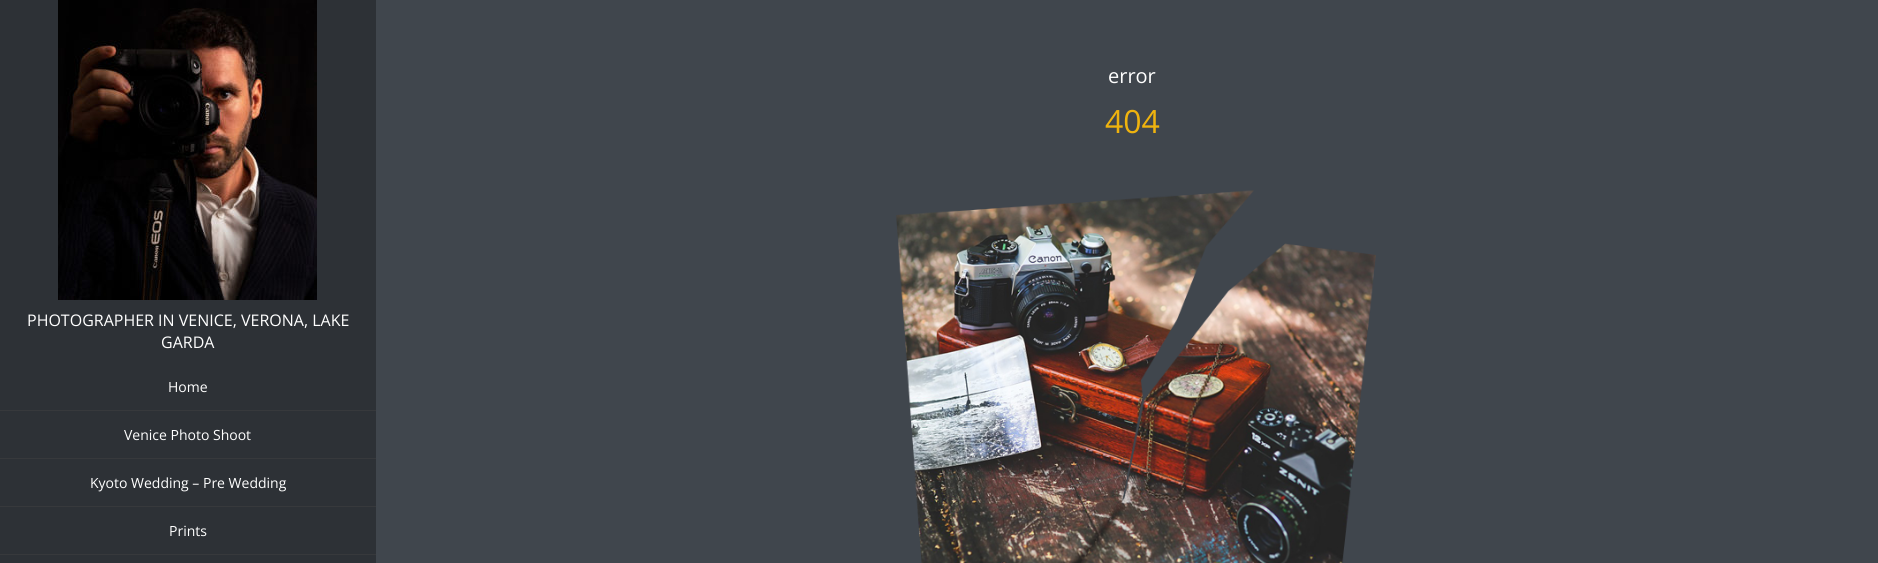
#include <cairo.h>
#include <math.h>
#include <stddef.h>


static void rgb(cairo_t *cr, int r, int g, int b)
{
	cairo_set_source_rgb(cr, r / 255.0, g / 255.0, b / 255.0);
}

static void face(cairo_t *cr, const char *family, double size, int italic, int bold)
{
	cairo_select_font_face(cr, family, italic ? CAIRO_FONT_SLANT_ITALIC : CAIRO_FONT_SLANT_NORMAL,
		bold ? CAIRO_FONT_WEIGHT_BOLD : CAIRO_FONT_WEIGHT_NORMAL);
	cairo_set_font_size(cr, size);
}

static void label(cairo_t *cr, double x, double y, const char *s)
{
	cairo_move_to(cr, x, y);
	cairo_show_text(cr, s);
}

static void rect(cairo_t *cr, double x, double y, double w, double h)
{
	cairo_rectangle(cr, x, y, w, h);
	cairo_fill(cr);
}

static void image(cairo_t *cr, const char *path, double x, double y, double w, double h)
{
	cairo_surface_t *image = cairo_image_surface_create_from_png(path);
	cairo_save(cr);
	cairo_set_source_surface(cr, image, x, y);
	cairo_rectangle(cr, x, y, w, h);
	cairo_fill(cr);
	cairo_restore(cr);
	cairo_surface_destroy(image);
}

static void draw(cairo_t *cr) {
	rgb(cr, 64, 70, 77);
	cairo_paint(cr);
	face(cr, "Open Sans", 20, 0, 0);
	rgb(cr, 255, 255, 255);
	label(cr, 1108, 83, "error");
	face(cr, "Open Sans", 32, 0, 0);
	rgb(cr, 239, 179, 14);
	label(cr, 1105, 133, "404");
	image(cr, "image0.png", 896, 190, 480, 373);
	rgb(cr, 45, 49, 54);
	rect(cr, 0, 0, 376, 563);
	image(cr, "image1.png", 58, 0, 259, 300);
	face(cr, "Open Sans", 16, 0, 0);
	rgb(cr, 255, 255, 255);
	label(cr, 27, 326, "PHOTOGRAPHER IN VENICE, VERONA, LAKE");
	label(cr, 161, 348, "GARDA");
	rgb(cr, 55, 57, 60);
	rect(cr, 0, 410, 376, 1);
	face(cr, "Open Sans", 14, 0, 0);
	rgb(cr, 255, 255, 255);
	label(cr, 168, 392, "Home");
	rgb(cr, 55, 57, 60);
	rect(cr, 0, 458, 376, 1);
	rgb(cr, 255, 255, 255);
	label(cr, 124, 440, "Venice Photo Shoot");
	rgb(cr, 55, 57, 60);
	rect(cr, 0, 506, 376, 1);
	rgb(cr, 255, 255, 255);
	label(cr, 90, 488, "Kyoto Wedding – Pre Wedding");
	rgb(cr, 55, 57, 60);
	rect(cr, 0, 554, 376, 1);
	rgb(cr, 255, 255, 255);
	label(cr, 169, 536, "Prints");
}

int main(void) {
	cairo_surface_t *surface = cairo_image_surface_create(CAIRO_FORMAT_RGB24, 1878, 563);
	cairo_t *cr = cairo_create(surface);
	cairo_font_options_t *options = cairo_font_options_create();
	cairo_font_options_set_hint_metrics(options, CAIRO_HINT_METRICS_OFF);
	cairo_font_options_set_hint_style(options, CAIRO_HINT_STYLE_NONE);
	cairo_set_font_options(cr, options);
	cairo_set_miter_limit(cr, 4);
	draw(cr);
	cairo_surface_write_to_png(surface, "render.png");
	cairo_font_options_destroy(options);
	cairo_destroy(cr);
	cairo_surface_destroy(surface);
	return 0;
}
